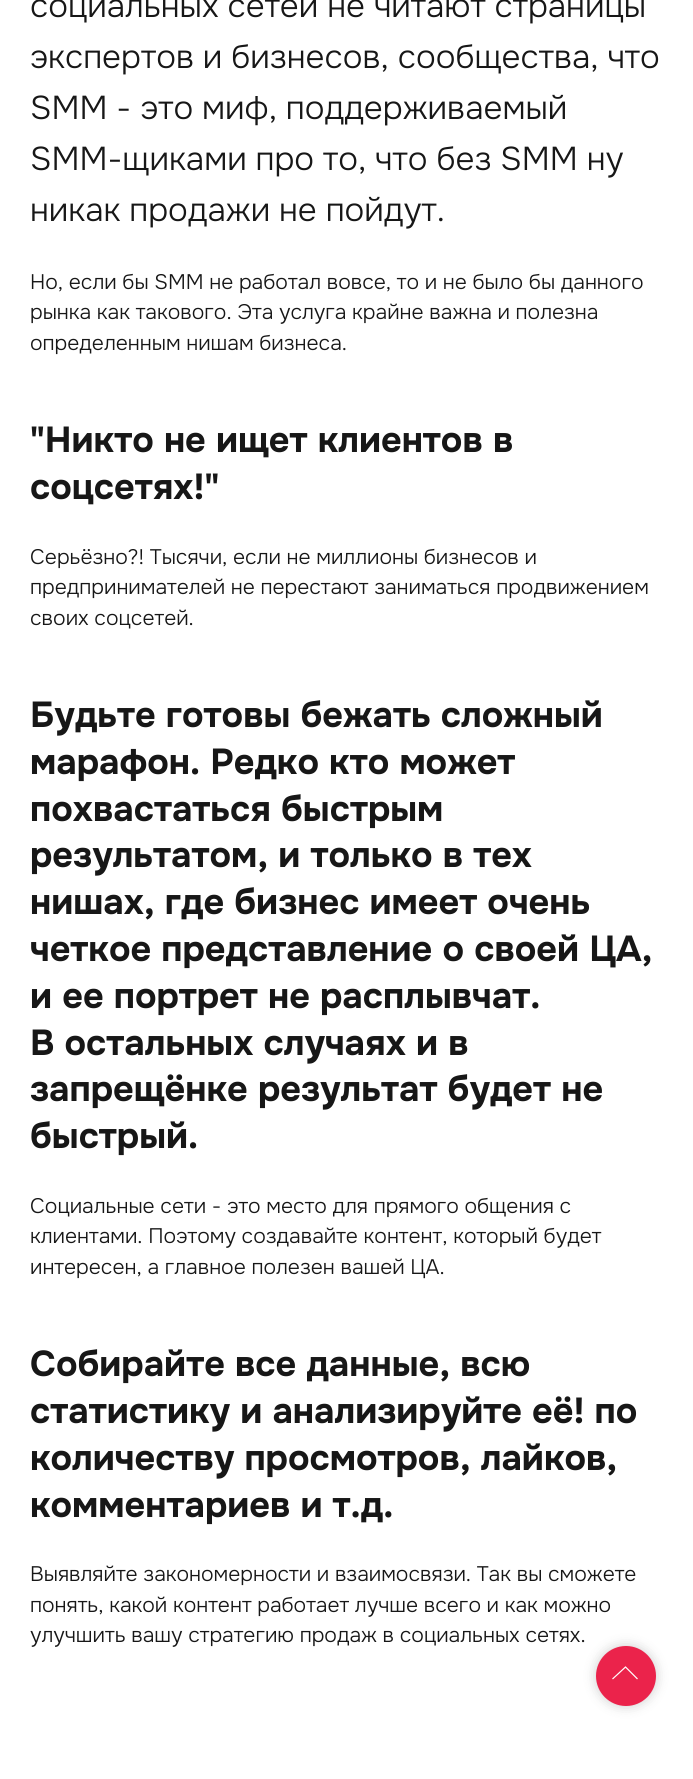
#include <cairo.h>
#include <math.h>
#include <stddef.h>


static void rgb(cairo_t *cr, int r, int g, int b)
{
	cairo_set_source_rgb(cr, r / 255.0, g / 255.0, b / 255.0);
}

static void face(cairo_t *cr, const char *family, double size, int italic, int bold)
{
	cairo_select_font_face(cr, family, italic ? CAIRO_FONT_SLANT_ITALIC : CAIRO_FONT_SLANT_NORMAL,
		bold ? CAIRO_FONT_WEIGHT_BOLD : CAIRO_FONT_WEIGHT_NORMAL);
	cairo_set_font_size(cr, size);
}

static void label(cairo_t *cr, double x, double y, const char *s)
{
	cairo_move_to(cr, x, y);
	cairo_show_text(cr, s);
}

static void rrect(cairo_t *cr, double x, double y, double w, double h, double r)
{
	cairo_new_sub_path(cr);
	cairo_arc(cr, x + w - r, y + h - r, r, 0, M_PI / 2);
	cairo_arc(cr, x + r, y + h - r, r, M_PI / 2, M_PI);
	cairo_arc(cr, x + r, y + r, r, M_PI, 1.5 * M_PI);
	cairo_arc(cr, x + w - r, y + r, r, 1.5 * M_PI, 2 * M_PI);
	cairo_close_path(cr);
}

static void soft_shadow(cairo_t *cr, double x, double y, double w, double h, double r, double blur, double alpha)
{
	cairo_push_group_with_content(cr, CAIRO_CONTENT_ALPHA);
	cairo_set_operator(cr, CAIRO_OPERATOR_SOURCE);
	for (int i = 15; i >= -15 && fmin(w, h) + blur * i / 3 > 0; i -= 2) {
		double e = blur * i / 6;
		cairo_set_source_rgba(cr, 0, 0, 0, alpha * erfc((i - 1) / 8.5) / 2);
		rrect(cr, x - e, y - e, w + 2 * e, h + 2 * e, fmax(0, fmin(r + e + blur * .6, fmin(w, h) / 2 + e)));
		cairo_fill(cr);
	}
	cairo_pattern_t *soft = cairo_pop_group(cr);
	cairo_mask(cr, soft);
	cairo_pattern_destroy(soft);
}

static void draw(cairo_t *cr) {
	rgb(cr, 255, 255, 255);
	cairo_paint(cr);
	face(cr, "Onest Light", 33, 0, 0);
	rgb(cr, 23, 23, 23);
	label(cr, 30, 17, "социальных сетей не читают страницы");
	label(cr, 30, 68, "экспертов и бизнесов, сообщества, что");
	label(cr, 30, 119, "SMM - это миф, поддерживаемый");
	label(cr, 30, 170, "SMM-щиками про то, что без SMM ну");
	label(cr, 30, 221, "никак продажи не пойдут.");
	face(cr, "Onest Light", 21, 0, 0);
	label(cr, 30, 289, "Но, если бы SMM не работал вовсе, то и не было бы данного");
	label(cr, 30, 319, "рынка как такового. Эта услуга крайне важна и полезна");
	label(cr, 30, 350, "определенным нишам бизнеса.");
	face(cr, "Onest", 36, 0, 1);
	label(cr, 30, 452, "\"Никто не ищет клиентов в");
	label(cr, 30, 499, "соцсетях!\"");
	face(cr, "Onest Light", 21, 0, 0);
	label(cr, 30, 564, "Серьёзно?! Тысячи, если не миллионы бизнесов и");
	label(cr, 30, 594, "предпринимателей не перестают заниматься продвижением");
	label(cr, 30, 625, "своих соцсетей.");
	face(cr, "Onest", 36, 0, 1);
	label(cr, 30, 727, "Будьте готовы бежать сложный");
	label(cr, 30, 774, "марафон. Редко кто может");
	label(cr, 30, 821, "похвастаться быстрым");
	label(cr, 30, 867, "результатом, и только в тех");
	label(cr, 30, 914, "нишах, где бизнес имеет очень");
	label(cr, 30, 961, "четкое представление о своей ЦА,");
	label(cr, 30, 1008, "и ее портрет не расплывчат.");
	label(cr, 30, 1055, "В остальных случаях и в");
	label(cr, 30, 1101, "запрещёнке результат будет не");
	label(cr, 30, 1148, "быстрый.");
	face(cr, "Onest Light", 21, 0, 0);
	label(cr, 30, 1213, "Социальные сети - это место для прямого общения с");
	label(cr, 30, 1243, "клиентами. Поэтому создавайте контент, который будет");
	label(cr, 30, 1274, "интересен, а главное полезен вашей ЦА.");
	face(cr, "Onest", 36, 0, 1);
	label(cr, 30, 1376, "Собирайте все данные, всю");
	label(cr, 30, 1423, "статистику и анализируйте её! по");
	label(cr, 30, 1470, "количеству просмотров, лайков,");
	label(cr, 30, 1517, "комментариев и т.д.");
	face(cr, "Onest Light", 21, 0, 0);
	label(cr, 30, 1581, "Выявляйте закономерности и взаимосвязи. Так вы сможете");
	label(cr, 30, 1612, "понять, какой контент работает лучше всего и как можно");
	label(cr, 30, 1642, "улучшить вашу стратегию продаж в социальных сетях.");
	rgb(cr, 0, 0, 0);
	soft_shadow(cr, 596, 1646, 60, 60, 30, 6, 0.2);
	rgb(cr, 235, 35, 75);
	cairo_arc(cr, 626, 1676, 30, 0, 2 * M_PI);
	cairo_fill(cr);
	cairo_new_path(cr);
	cairo_move_to(cr, 612.5, 1679);
	cairo_line_to(cr, 625.5, 1667);
	cairo_line_to(cr, 637.5, 1679);
	rgb(cr, 255, 255, 255);
	cairo_set_line_width(cr, 1.2);
	cairo_stroke(cr);
}

int main(void) {
	cairo_surface_t *surface = cairo_image_surface_create(CAIRO_FORMAT_RGB24, 693, 1779);
	cairo_t *cr = cairo_create(surface);
	cairo_font_options_t *options = cairo_font_options_create();
	cairo_font_options_set_hint_metrics(options, CAIRO_HINT_METRICS_OFF);
	cairo_font_options_set_hint_style(options, CAIRO_HINT_STYLE_NONE);
	cairo_set_font_options(cr, options);
	cairo_set_miter_limit(cr, 4);
	draw(cr);
	cairo_surface_write_to_png(surface, "render.png");
	cairo_font_options_destroy(options);
	cairo_destroy(cr);
	cairo_surface_destroy(surface);
	return 0;
}
